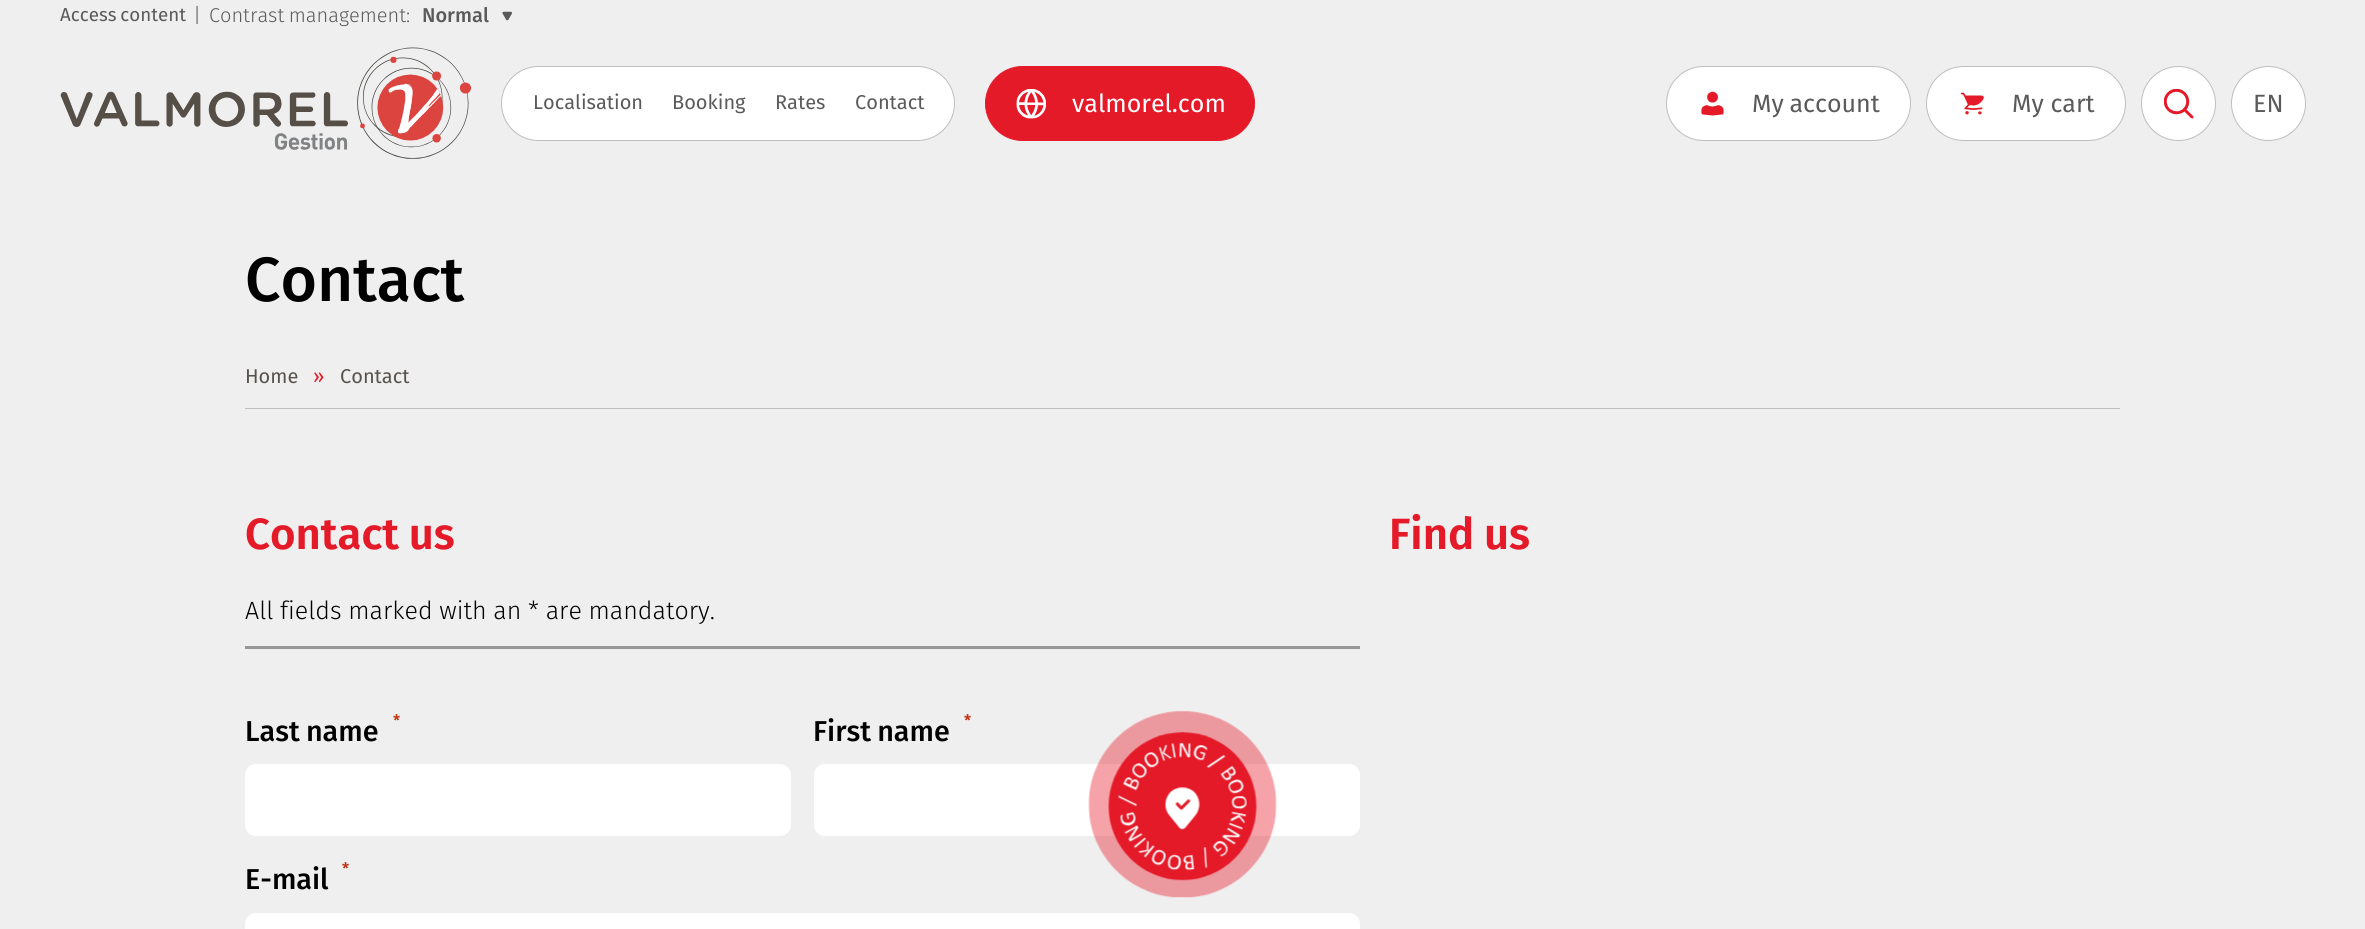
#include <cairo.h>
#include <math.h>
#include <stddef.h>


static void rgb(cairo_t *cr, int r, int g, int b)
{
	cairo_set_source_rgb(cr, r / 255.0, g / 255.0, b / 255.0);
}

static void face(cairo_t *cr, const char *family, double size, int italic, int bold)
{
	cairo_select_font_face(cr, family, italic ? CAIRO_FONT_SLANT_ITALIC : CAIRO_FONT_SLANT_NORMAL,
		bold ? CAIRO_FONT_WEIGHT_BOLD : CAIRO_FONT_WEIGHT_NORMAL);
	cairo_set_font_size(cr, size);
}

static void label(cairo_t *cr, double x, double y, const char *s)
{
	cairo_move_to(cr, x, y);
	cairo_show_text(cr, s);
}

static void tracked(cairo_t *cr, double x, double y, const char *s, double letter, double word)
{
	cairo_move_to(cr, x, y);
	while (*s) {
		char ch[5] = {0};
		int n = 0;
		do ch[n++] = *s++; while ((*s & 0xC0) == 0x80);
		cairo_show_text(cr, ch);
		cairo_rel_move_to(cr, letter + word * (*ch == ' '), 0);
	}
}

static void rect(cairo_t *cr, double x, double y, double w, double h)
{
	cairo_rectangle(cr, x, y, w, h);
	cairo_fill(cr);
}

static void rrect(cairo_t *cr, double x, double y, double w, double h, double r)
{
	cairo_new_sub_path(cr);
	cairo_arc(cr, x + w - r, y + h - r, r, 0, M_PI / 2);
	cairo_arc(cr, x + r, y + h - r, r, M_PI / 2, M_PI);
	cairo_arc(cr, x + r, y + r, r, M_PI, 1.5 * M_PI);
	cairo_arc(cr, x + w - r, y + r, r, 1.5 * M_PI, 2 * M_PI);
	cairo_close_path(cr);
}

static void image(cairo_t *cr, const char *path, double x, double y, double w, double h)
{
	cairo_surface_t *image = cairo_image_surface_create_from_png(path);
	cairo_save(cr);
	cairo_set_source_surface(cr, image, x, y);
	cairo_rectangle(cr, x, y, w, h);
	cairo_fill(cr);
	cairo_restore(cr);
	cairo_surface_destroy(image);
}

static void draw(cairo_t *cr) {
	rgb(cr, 239, 239, 239);
	cairo_paint(cr);
	face(cr, "Fira Sans", 18.75, 0, 0);
	rgb(cr, 90, 90, 90);
	tracked(cr, 60, 21, "Access content", 0, -1);
	face(cr, "Fira Sans Light", 20, 0, 0);
	label(cr, 193, 22, "|");
	tracked(cr, 209, 22, "Contrast management:", 0, -1);
	face(cr, "Fira Sans Medium", 20, 0, 0);
	label(cr, 422, 22, "Normal");
	image(cr, "image0.png", 502, 11, 11, 10);
	image(cr, "image1.png", 60, 47, 411, 112);
	rgb(cr, 255, 255, 255);
	rrect(cr, 501.5, 66.5, 453, 74, 37);
	cairo_fill_preserve(cr);
	rgb(cr, 190, 190, 190);
	cairo_set_line_width(cr, 1);
	cairo_stroke(cr);
	face(cr, "Fira Sans", 20, 0, 0);
	rgb(cr, 90, 90, 90);
	label(cr, 533, 109, "Localisation");
	label(cr, 672, 109, "Booking");
	label(cr, 775, 109, "Rates");
	label(cr, 855, 109, "Contact");
	rgb(cr, 229, 26, 41);
	rrect(cr, 985.5, 66.5, 269, 74, 37);
	cairo_fill_preserve(cr);
	cairo_stroke(cr);
	image(cr, "image2.png", 1016, 89, 30, 30);
	face(cr, "Fira Sans", 25, 0, 0);
	rgb(cr, 255, 255, 255);
	label(cr, 1072, 112, "valmorel.com");
	rrect(cr, 1666.5, 66.5, 244, 74, 37);
	cairo_fill_preserve(cr);
	rgb(cr, 190, 190, 190);
	cairo_stroke(cr);
	image(cr, "image3.png", 1701, 91, 23, 25);
	rgb(cr, 90, 90, 90);
	tracked(cr, 1752, 112, "My account", 0, -1);
	rgb(cr, 255, 255, 255);
	rrect(cr, 1926.5, 66.5, 199, 74, 37);
	cairo_fill_preserve(cr);
	rgb(cr, 190, 190, 190);
	cairo_stroke(cr);
	image(cr, "image4.png", 1960, 92, 24, 23);
	rgb(cr, 90, 90, 90);
	label(cr, 2012, 112, "My cart");
	rgb(cr, 255, 255, 255);
	cairo_new_path(cr);
	cairo_arc(cr, 2178.5, 103.5, 37, 0, 2 * M_PI);
	cairo_fill_preserve(cr);
	rgb(cr, 190, 190, 190);
	cairo_stroke(cr);
	image(cr, "image5.png", 2164, 89, 30, 30);
	rgb(cr, 255, 255, 255);
	cairo_arc(cr, 2268.5, 103.5, 37, 0, 2 * M_PI);
	cairo_fill_preserve(cr);
	rgb(cr, 190, 190, 190);
	cairo_stroke(cr);
	rgb(cr, 90, 90, 90);
	label(cr, 2253, 112, "EN");
	rgb(cr, 190, 190, 190);
	rect(cr, 245, 408, 1875, 1);
	face(cr, "Fira Sans Medium", 62.5, 0, 0);
	rgb(cr, 0, 0, 0);
	label(cr, 245, 301, "Contact");
	face(cr, "Fira Sans", 20, 0, 0);
	rgb(cr, 87, 83, 76);
	label(cr, 245, 383, "Home");
	rgb(cr, 229, 26, 41);
	label(cr, 313, 383, "»");
	rgb(cr, 87, 83, 76);
	label(cr, 340, 383, "Contact");
	face(cr, "Fira Sans SemiBold", 43.75, 0, 0);
	rgb(cr, 229, 26, 41);
	tracked(cr, 245, 549, "Contact us", 0, -1);
	face(cr, "Fira Sans Light", 25, 0, 0);
	rgb(cr, 0, 0, 0);
	tracked(cr, 245, 619, "All fields marked with an * are mandatory.", 0, -0.25);
	rgb(cr, 151, 151, 151);
	rect(cr, 245, 646, 1115, 3);
	face(cr, "Fira Sans Medium", 16, 0, 0);
	rgb(cr, 192, 43, 10);
	label(cr, 393, 726, "*");
	face(cr, "Fira Sans Medium", 28.75, 0, 0);
	rgb(cr, 0, 0, 0);
	tracked(cr, 245, 741, "Last name", 0, -1);
	rgb(cr, 255, 255, 255);
	rrect(cr, 245, 764, 546, 72, 11);
	cairo_fill(cr);
	face(cr, "Fira Sans Medium", 16, 0, 0);
	rgb(cr, 192, 43, 10);
	label(cr, 964, 726, "*");
	face(cr, "Fira Sans Medium", 28.75, 0, 0);
	rgb(cr, 0, 0, 0);
	tracked(cr, 813, 741, "First name", 0, -1);
	rgb(cr, 255, 255, 255);
	rrect(cr, 814, 764, 546, 72, 11);
	cairo_fill(cr);
	face(cr, "Fira Sans Medium", 16, 0, 0);
	rgb(cr, 192, 43, 10);
	label(cr, 342, 874, "*");
	face(cr, "Fira Sans Medium", 28.75, 0, 0);
	rgb(cr, 0, 0, 0);
	label(cr, 245, 889, "E-mail");
	rgb(cr, 255, 255, 255);
	rrect(cr, 245, 913, 1115, 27, 11);
	cairo_fill(cr);
	face(cr, "Fira Sans SemiBold", 43.75, 0, 0);
	rgb(cr, 229, 26, 41);
	tracked(cr, 1389, 549, "Find us", 0, -1);
	image(cr, "image6.png", 1088, 711, 189, 187);
}

int main(void) {
	cairo_surface_t *surface = cairo_image_surface_create(CAIRO_FORMAT_RGB24, 2365, 929);
	cairo_t *cr = cairo_create(surface);
	cairo_font_options_t *options = cairo_font_options_create();
	cairo_font_options_set_hint_metrics(options, CAIRO_HINT_METRICS_OFF);
	cairo_font_options_set_hint_style(options, CAIRO_HINT_STYLE_NONE);
	cairo_set_font_options(cr, options);
	cairo_set_miter_limit(cr, 4);
	draw(cr);
	cairo_surface_write_to_png(surface, "render.png");
	cairo_font_options_destroy(options);
	cairo_destroy(cr);
	cairo_surface_destroy(surface);
	return 0;
}
